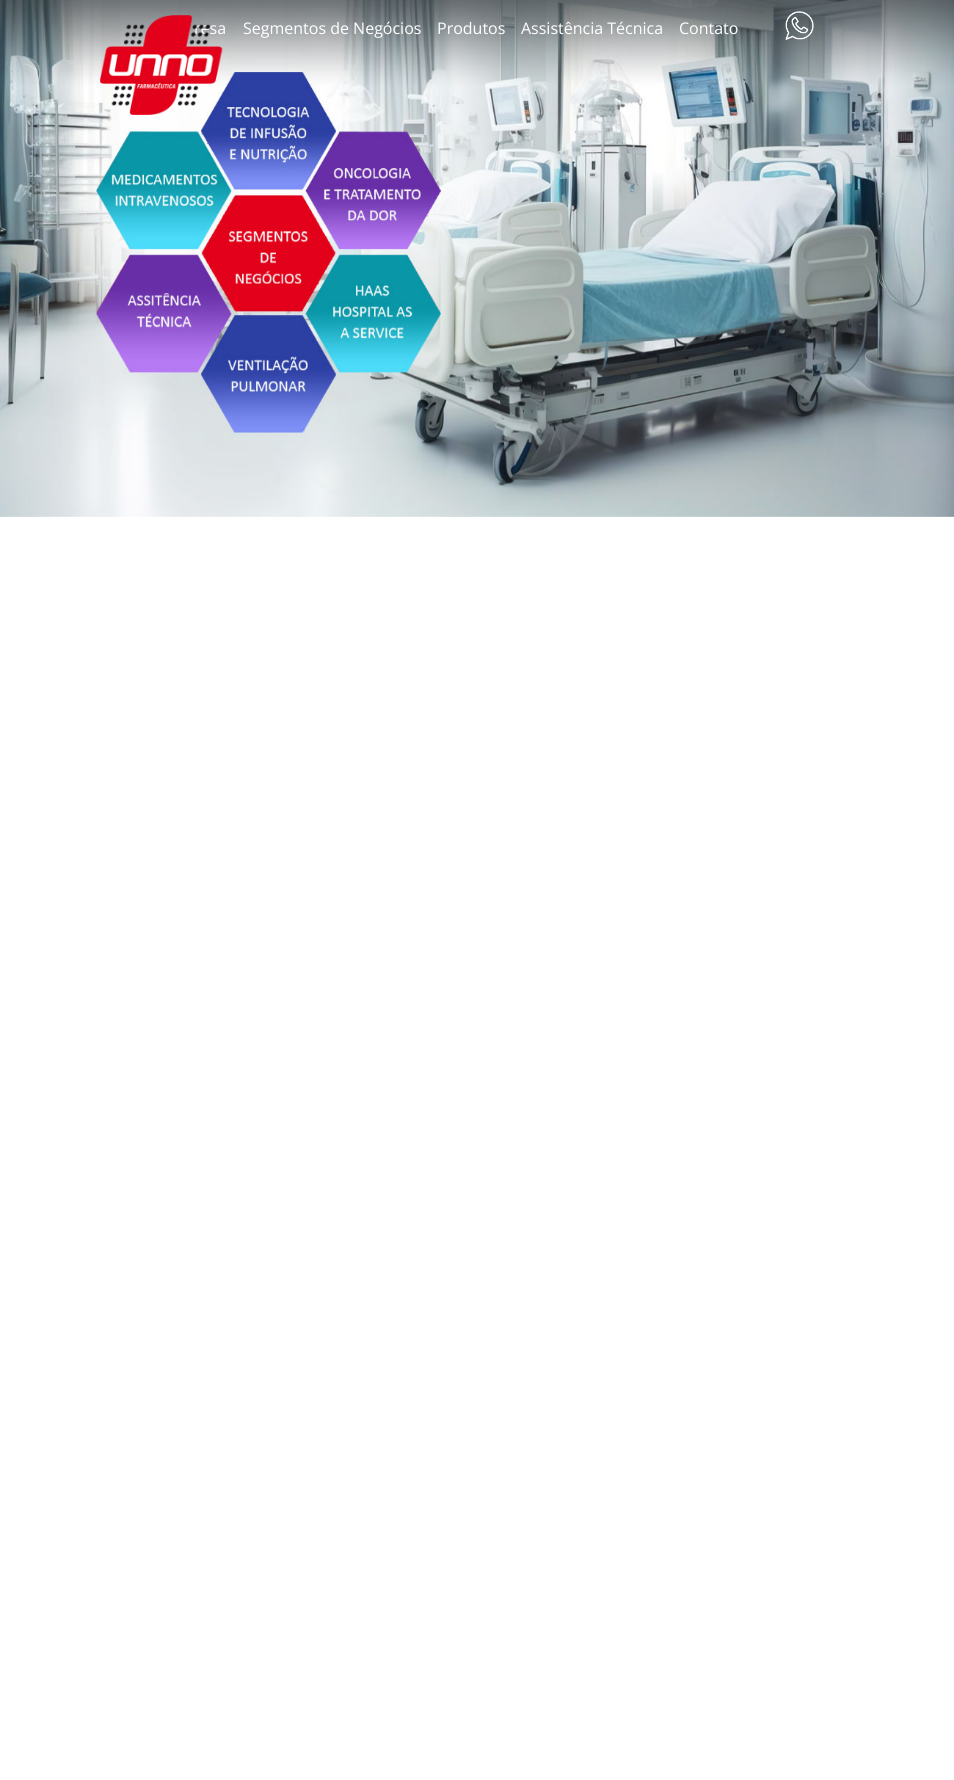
#include <cairo.h>
#include <math.h>
#include <stddef.h>


static void rgb(cairo_t *cr, int r, int g, int b)
{
	cairo_set_source_rgb(cr, r / 255.0, g / 255.0, b / 255.0);
}

static void face(cairo_t *cr, const char *family, double size, int italic, int bold)
{
	cairo_select_font_face(cr, family, italic ? CAIRO_FONT_SLANT_ITALIC : CAIRO_FONT_SLANT_NORMAL,
		bold ? CAIRO_FONT_WEIGHT_BOLD : CAIRO_FONT_WEIGHT_NORMAL);
	cairo_set_font_size(cr, size);
}

static void label(cairo_t *cr, double x, double y, const char *s)
{
	cairo_move_to(cr, x, y);
	cairo_show_text(cr, s);
}

static void image(cairo_t *cr, const char *path, double x, double y, double w, double h)
{
	cairo_surface_t *image = cairo_image_surface_create_from_png(path);
	cairo_save(cr);
	cairo_set_source_surface(cr, image, x, y);
	cairo_rectangle(cr, x, y, w, h);
	cairo_fill(cr);
	cairo_restore(cr);
	cairo_surface_destroy(image);
}

static void draw(cairo_t *cr) {
	rgb(cr, 255, 255, 255);
	cairo_paint(cr);
	image(cr, "image0.png", 0, 0, 954, 517);
	face(cr, "Open Sans", 16, 0, 0);
	rgb(cr, 255, 255, 255);
	label(cr, 194, 34, "resa");
	image(cr, "image1.png", 100, 15, 123, 100);
	label(cr, 243, 34, "Segmentos de Negócios");
	label(cr, 437, 34, "Produtos");
	label(cr, 521, 34, "Assistência Técnica");
	label(cr, 679, 34, "Contato");
	image(cr, "image2.png", 785, 11, 29, 29);
}

int main(void) {
	cairo_surface_t *surface = cairo_image_surface_create(CAIRO_FORMAT_RGB24, 954, 1780);
	cairo_t *cr = cairo_create(surface);
	cairo_font_options_t *options = cairo_font_options_create();
	cairo_font_options_set_hint_metrics(options, CAIRO_HINT_METRICS_OFF);
	cairo_font_options_set_hint_style(options, CAIRO_HINT_STYLE_NONE);
	cairo_set_font_options(cr, options);
	cairo_set_miter_limit(cr, 4);
	draw(cr);
	cairo_surface_write_to_png(surface, "render.png");
	cairo_font_options_destroy(options);
	cairo_destroy(cr);
	cairo_surface_destroy(surface);
	return 0;
}
